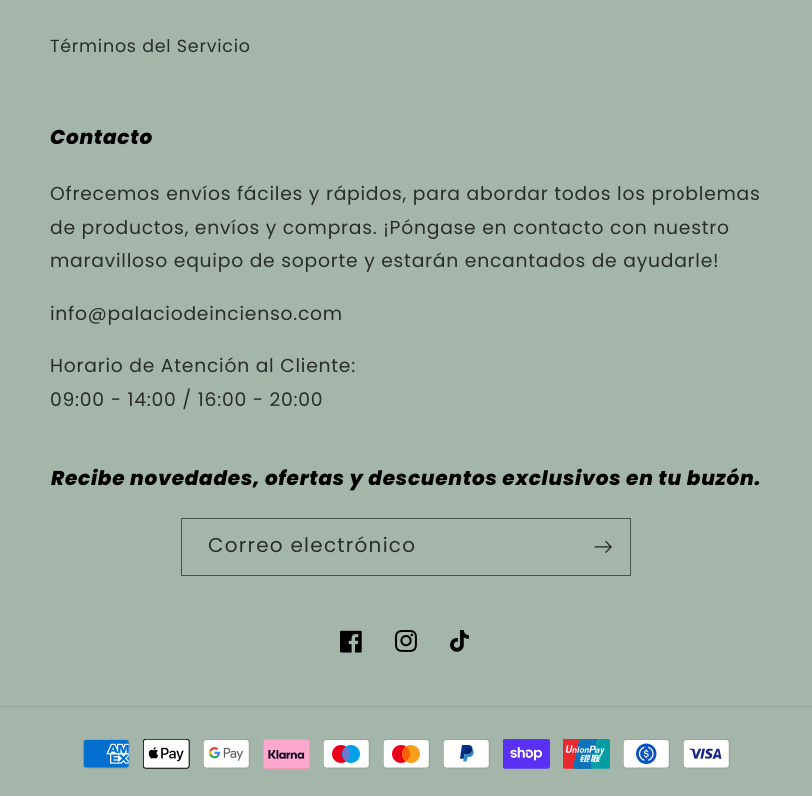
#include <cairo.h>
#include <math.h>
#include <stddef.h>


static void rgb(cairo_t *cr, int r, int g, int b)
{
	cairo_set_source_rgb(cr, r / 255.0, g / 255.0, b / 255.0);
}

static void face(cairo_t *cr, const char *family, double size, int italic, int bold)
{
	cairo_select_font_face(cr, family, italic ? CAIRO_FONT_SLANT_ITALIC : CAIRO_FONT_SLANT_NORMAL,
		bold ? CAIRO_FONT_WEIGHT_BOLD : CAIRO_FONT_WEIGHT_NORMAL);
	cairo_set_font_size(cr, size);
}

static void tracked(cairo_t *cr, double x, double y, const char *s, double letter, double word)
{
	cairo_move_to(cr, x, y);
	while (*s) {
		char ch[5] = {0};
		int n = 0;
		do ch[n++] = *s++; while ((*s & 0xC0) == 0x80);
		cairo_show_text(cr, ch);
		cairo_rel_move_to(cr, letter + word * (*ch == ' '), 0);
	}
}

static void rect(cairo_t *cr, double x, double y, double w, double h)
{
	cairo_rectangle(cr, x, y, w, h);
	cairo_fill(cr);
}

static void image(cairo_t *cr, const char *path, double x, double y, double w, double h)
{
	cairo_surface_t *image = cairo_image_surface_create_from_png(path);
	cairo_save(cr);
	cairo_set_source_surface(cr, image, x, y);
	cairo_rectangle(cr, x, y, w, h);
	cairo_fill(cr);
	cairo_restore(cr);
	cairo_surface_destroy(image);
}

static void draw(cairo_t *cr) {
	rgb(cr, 164, 181, 170);
	cairo_paint(cr);
	face(cr, "Poppins", 17.5, 0, 0);
	rgb(cr, 41, 45, 43);
	tracked(cr, 50, 52, "Términos del Servicio", 0.75, 0);
	face(cr, "Poppins ExtraBold", 20, 1, 0);
	rgb(cr, 0, 0, 0);
	tracked(cr, 50, 144, "Contacto", 0.75, 0);
	face(cr, "Poppins", 18.75, 0, 0);
	rgb(cr, 41, 45, 43);
	tracked(cr, 50, 200, "Ofrecemos envíos fáciles y rápidos, para abordar todos los problemas", 0.75, 0);
	tracked(cr, 50, 234, "de productos, envíos y compras. ¡Póngase en contacto con nuestro", 0.75, 0);
	tracked(cr, 50, 267, "maravilloso equipo de soporte y estarán encantados de ayudarle!", 0.75, 0);
	tracked(cr, 50, 320, "info@palaciodeincienso.com", 0.75, 0);
	tracked(cr, 50, 372, "Horario de Atención al Cliente:", 0.75, 0);
	tracked(cr, 50, 406, "09:00 - 14:00 / 16:00 - 20:00", 0.75, 0);
	face(cr, "Poppins ExtraBold", 20, 1, 0);
	rgb(cr, 0, 0, 0);
	tracked(cr, 51, 485, "Recibe novedades, ofertas y descuentos exclusivos en tu buzón.", 0.75, 0);
	cairo_rectangle(cr, 181.5, 518.5, 449, 57);
	rgb(cr, 74, 81, 77);
	cairo_set_line_width(cr, 1);
	cairo_stroke(cr);
	face(cr, "Poppins", 20, 0, 0);
	rgb(cr, 41, 45, 43);
	tracked(cr, 208, 552, "Correo electrónico", 1.25, 0);
	image(cr, "image0.png", 594, 540, 18, 13);
	image(cr, "image1.png", 340, 630, 22, 23);
	image(cr, "image2.png", 395, 630, 22, 22);
	image(cr, "image3.png", 450, 630, 19, 22);
	rgb(cr, 151, 167, 156);
	rect(cr, 0, 706, 812, 1);
	image(cr, "image4.png", 83, 739, 47, 30);
	image(cr, "image5.png", 143, 739, 47, 30);
	image(cr, "image6.png", 203, 739, 47, 30);
	image(cr, "image7.png", 263, 739, 47, 30);
	image(cr, "image8.png", 323, 739, 47, 30);
	image(cr, "image9.png", 383, 739, 47, 30);
	image(cr, "image10.png", 443, 739, 47, 30);
	image(cr, "image11.png", 503, 739, 47, 30);
	image(cr, "image12.png", 563, 739, 47, 30);
	image(cr, "image13.png", 623, 739, 47, 30);
	image(cr, "image14.png", 683, 739, 47, 30);
}

int main(void) {
	cairo_surface_t *surface = cairo_image_surface_create(CAIRO_FORMAT_RGB24, 812, 796);
	cairo_t *cr = cairo_create(surface);
	cairo_font_options_t *options = cairo_font_options_create();
	cairo_font_options_set_hint_metrics(options, CAIRO_HINT_METRICS_OFF);
	cairo_font_options_set_hint_style(options, CAIRO_HINT_STYLE_NONE);
	cairo_set_font_options(cr, options);
	cairo_set_miter_limit(cr, 4);
	draw(cr);
	cairo_surface_write_to_png(surface, "render.png");
	cairo_font_options_destroy(options);
	cairo_destroy(cr);
	cairo_surface_destroy(surface);
	return 0;
}
